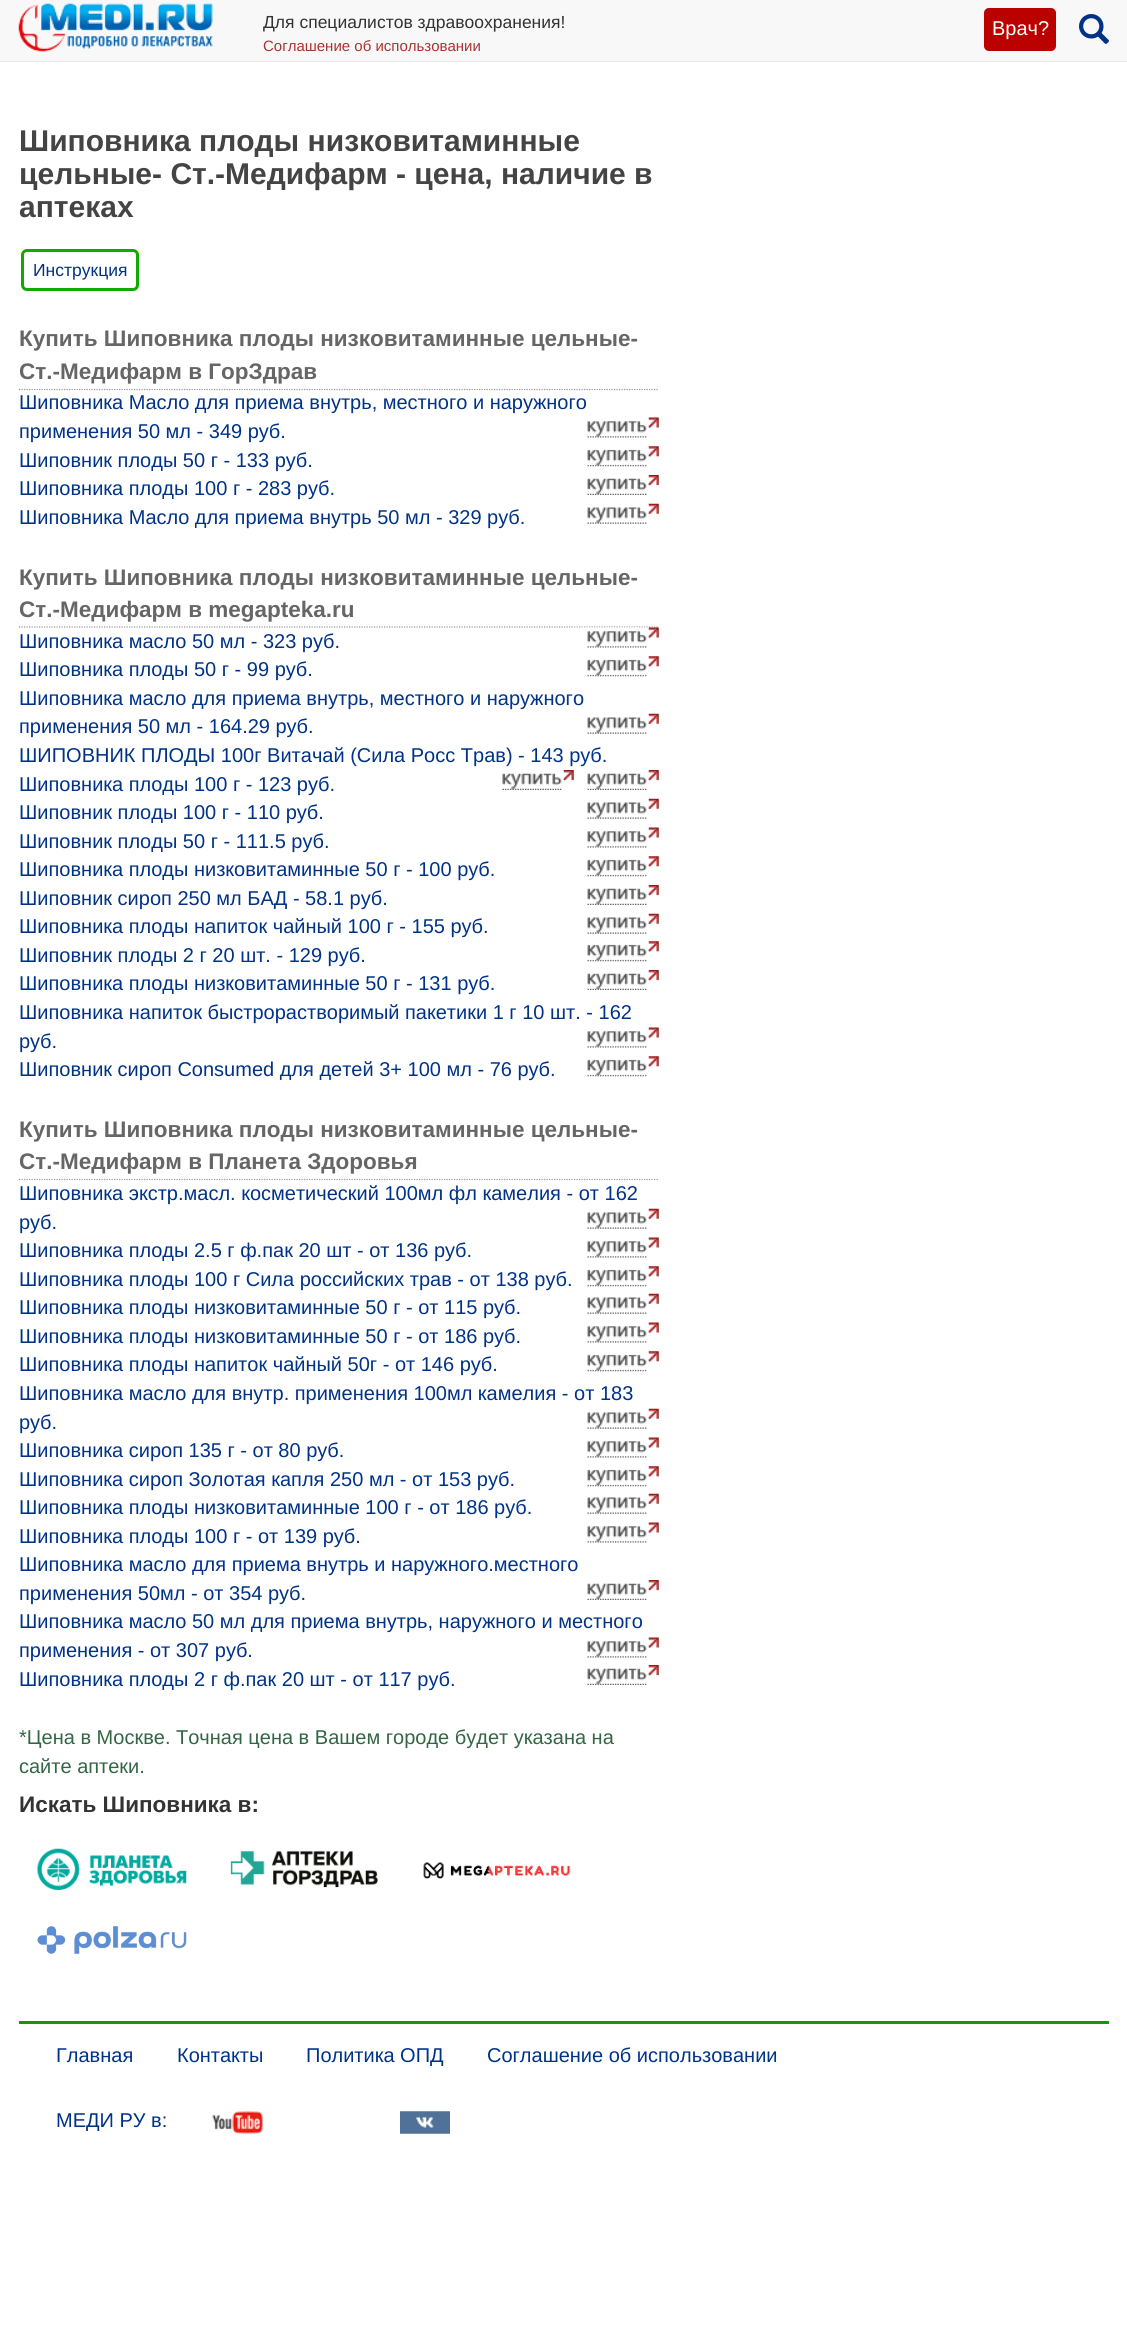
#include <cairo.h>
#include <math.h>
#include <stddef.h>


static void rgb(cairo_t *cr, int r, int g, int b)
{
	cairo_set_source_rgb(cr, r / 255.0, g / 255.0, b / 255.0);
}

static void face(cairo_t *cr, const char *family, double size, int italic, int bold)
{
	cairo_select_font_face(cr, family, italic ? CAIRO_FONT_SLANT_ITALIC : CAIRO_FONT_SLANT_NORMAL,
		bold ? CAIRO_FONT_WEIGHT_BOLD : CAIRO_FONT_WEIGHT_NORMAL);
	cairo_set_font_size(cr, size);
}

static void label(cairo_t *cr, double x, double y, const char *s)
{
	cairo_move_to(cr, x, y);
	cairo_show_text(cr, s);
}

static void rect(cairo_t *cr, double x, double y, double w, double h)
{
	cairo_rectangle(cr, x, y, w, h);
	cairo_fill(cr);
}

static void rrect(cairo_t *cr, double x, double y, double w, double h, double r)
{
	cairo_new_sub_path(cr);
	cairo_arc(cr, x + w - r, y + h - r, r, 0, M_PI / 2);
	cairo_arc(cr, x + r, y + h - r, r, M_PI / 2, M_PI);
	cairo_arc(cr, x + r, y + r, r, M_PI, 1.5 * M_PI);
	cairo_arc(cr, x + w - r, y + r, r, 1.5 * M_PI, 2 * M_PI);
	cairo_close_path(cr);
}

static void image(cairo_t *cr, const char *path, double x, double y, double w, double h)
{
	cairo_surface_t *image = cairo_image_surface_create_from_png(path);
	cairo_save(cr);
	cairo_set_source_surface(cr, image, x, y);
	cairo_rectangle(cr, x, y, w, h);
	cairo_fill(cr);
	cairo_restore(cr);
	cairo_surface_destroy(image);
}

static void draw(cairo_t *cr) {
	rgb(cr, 255, 255, 255);
	cairo_paint(cr);
	rgb(cr, 248, 248, 248);
	rect(cr, 0, 0, 1127, 61);
	rgb(cr, 231, 231, 231);
	rect(cr, 0, 61, 1127, 1);
	image(cr, "image0.png", 18, 3, 195, 49);
	face(cr, "Liberation Sans", 17.5, 0, 0);
	rgb(cr, 51, 51, 51);
	label(cr, 263, 28, "Для специалистов здравоохранения!");
	face(cr, "Liberation Sans", 15, 0, 0);
	rgb(cr, 170, 51, 51);
	label(cr, 263, 51, "Соглашение об использовании");
	rgb(cr, 187, 0, 0);
	rrect(cr, 984, 8, 72, 43, 5);
	cairo_fill(cr);
	face(cr, "Liberation Sans", 20, 0, 0);
	rgb(cr, 255, 255, 255);
	label(cr, 992, 35, "Врач?");
	image(cr, "image1.png", 1079, 14, 30, 30);
	face(cr, "Liberation Sans", 30, 0, 1);
	rgb(cr, 68, 68, 68);
	label(cr, 19, 151, "Шиповника плоды низковитаминные");
	label(cr, 19, 184, "цельные- Ст.-Медифарм - цена, наличие в");
	label(cr, 19, 217, "аптеках");
	rrect(cr, 22.5, 250.5, 115, 39, 4.5);
	rgb(cr, 17, 170, 0);
	cairo_set_line_width(cr, 3);
	cairo_stroke(cr);
	face(cr, "Liberation Sans", 17.5, 0, 0);
	rgb(cr, 0, 51, 136);
	label(cr, 33, 276, "Инструкция");
	cairo_new_path(cr);
	cairo_move_to(cr, 19, 389.5);
	cairo_line_to(cr, 659, 389.5);
	rgb(cr, 153, 153, 153);
	cairo_set_line_width(cr, 1.2);
	cairo_set_dash(cr, (double[]){1.25, 1.25}, 2, 0);
	cairo_stroke(cr);
	face(cr, "Liberation Sans", 22.5, 0, 1);
	rgb(cr, 102, 102, 102);
	label(cr, 19, 346, "Купить Шиповника плоды низковитаминные цельные-");
	label(cr, 19, 379, "Ст.-Медифарм в ГорЗдрав");
	face(cr, "Liberation Sans", 20, 0, 0);
	rgb(cr, 0, 51, 136);
	label(cr, 19, 409, "Шиповника Масло для приема внутрь, местного и наружного");
	label(cr, 19, 438, "применения 50 мл - 349 руб.");
	image(cr, "image2.png", 587, 417, 72, 21);
	label(cr, 19, 467, "Шиповник плоды 50 г - 133 руб.");
	image(cr, "image3.png", 587, 446, 72, 21);
	label(cr, 19, 495, "Шиповника плоды 100 г - 283 руб.");
	image(cr, "image4.png", 587, 475, 72, 20);
	label(cr, 19, 524, "Шиповника Масло для приема внутрь 50 мл - 329 руб.");
	image(cr, "image5.png", 587, 503, 72, 21);
	cairo_new_path(cr);
	cairo_move_to(cr, 19, 627);
	cairo_line_to(cr, 659, 627);
	rgb(cr, 153, 153, 153);
	cairo_stroke(cr);
	face(cr, "Liberation Sans", 22.5, 0, 1);
	rgb(cr, 102, 102, 102);
	label(cr, 19, 585, "Купить Шиповника плоды низковитаминные цельные-");
	label(cr, 19, 617, "Ст.-Медифарм в megapteka.ru");
	face(cr, "Liberation Sans", 20, 0, 0);
	rgb(cr, 0, 51, 136);
	label(cr, 19, 648, "Шиповника масло 50 мл - 323 руб.");
	image(cr, "image6.png", 574, 627, 85, 21);
	label(cr, 19, 676, "Шиповника плоды 50 г - 99 руб.");
	image(cr, "image3.png", 587, 656, 72, 21);
	label(cr, 19, 705, "Шиповника масло для приема внутрь, местного и наружного");
	label(cr, 19, 733, "применения 50 мл - 164.29 руб.");
	image(cr, "image5.png", 587, 713, 72, 21);
	label(cr, 19, 762, "ШИПОВНИК ПЛОДЫ 100г Витачай (Сила Росс Трав) - 143 руб.");
	image(cr, "image4.png", 587, 770, 72, 20);
	label(cr, 19, 791, "Шиповника плоды 100 г - 123 руб.");
	image(cr, "image7.png", 502, 770, 72, 20);
	label(cr, 19, 819, "Шиповник плоды 100 г - 110 руб.");
	image(cr, "image5.png", 587, 798, 72, 21);
	label(cr, 19, 848, "Шиповник плоды 50 г - 111.5 руб.");
	image(cr, "image2.png", 587, 827, 72, 21);
	label(cr, 19, 876, "Шиповника плоды низковитаминные 50 г - 100 руб.");
	image(cr, "image3.png", 587, 856, 72, 21);
	label(cr, 19, 905, "Шиповник сироп 250 мл БАД - 58.1 руб.");
	image(cr, "image4.png", 587, 885, 72, 20);
	label(cr, 19, 933, "Шиповника плоды напиток чайный 100 г - 155 руб.");
	image(cr, "image5.png", 587, 913, 72, 21);
	label(cr, 19, 962, "Шиповник плоды 2 г 20 шт. - 129 руб.");
	image(cr, "image3.png", 587, 941, 72, 21);
	label(cr, 19, 990, "Шиповника плоды низковитаминные 50 г - 131 руб.");
	image(cr, "image4.png", 587, 970, 72, 20);
	label(cr, 19, 1019, "Шиповника напиток быстрорастворимый пакетики 1 г 10 шт. - 162");
	label(cr, 19, 1048, "руб.");
	image(cr, "image2.png", 587, 1027, 72, 21);
	label(cr, 19, 1076, "Шиповник сироп Consumed для детей 3+ 100 мл - 76 руб.");
	image(cr, "image3.png", 587, 1056, 72, 21);
	cairo_new_path(cr);
	cairo_move_to(cr, 19, 1179.5);
	cairo_line_to(cr, 659, 1179.5);
	rgb(cr, 153, 153, 153);
	cairo_stroke(cr);
	face(cr, "Liberation Sans", 22.5, 0, 1);
	rgb(cr, 102, 102, 102);
	label(cr, 19, 1137, "Купить Шиповника плоды низковитаминные цельные-");
	label(cr, 19, 1169, "Ст.-Медифарм в Планета Здоровья");
	face(cr, "Liberation Sans", 20, 0, 0);
	rgb(cr, 0, 51, 136);
	label(cr, 19, 1200, "Шиповника экстр.масл. косметический 100мл фл камелия - от 162");
	label(cr, 19, 1229, "руб.");
	image(cr, "image5.png", 587, 1208, 72, 21);
	label(cr, 19, 1257, "Шиповника плоды 2.5 г ф.пак 20 шт - от 136 руб.");
	image(cr, "image2.png", 587, 1237, 72, 21);
	label(cr, 19, 1286, "Шиповника плоды 100 г Сила российских трав - от 138 руб.");
	image(cr, "image3.png", 587, 1266, 72, 21);
	label(cr, 19, 1314, "Шиповника плоды низковитаминные 50 г - от 115 руб.");
	image(cr, "image5.png", 587, 1293, 72, 21);
	label(cr, 19, 1343, "Шиповника плоды низковитаминные 50 г - от 186 руб.");
	image(cr, "image2.png", 587, 1322, 72, 21);
	label(cr, 19, 1371, "Шиповника плоды напиток чайный 50г - от 146 руб.");
	image(cr, "image3.png", 587, 1351, 72, 21);
	label(cr, 19, 1400, "Шиповника масло для внутр. применения 100мл камелия - от 183");
	label(cr, 19, 1429, "руб.");
	image(cr, "image5.png", 587, 1408, 72, 21);
	label(cr, 19, 1457, "Шиповника сироп 135 г - от 80 руб.");
	image(cr, "image2.png", 587, 1437, 72, 21);
	label(cr, 19, 1486, "Шиповника сироп Золотая капля 250 мл - от 153 руб.");
	image(cr, "image3.png", 587, 1466, 72, 21);
	label(cr, 19, 1514, "Шиповника плоды низковитаминные 100 г - от 186 руб.");
	image(cr, "image5.png", 587, 1493, 72, 21);
	label(cr, 19, 1543, "Шиповника плоды 100 г - от 139 руб.");
	image(cr, "image2.png", 587, 1522, 72, 21);
	label(cr, 19, 1571, "Шиповника масло для приема внутрь и наружного.местного");
	label(cr, 19, 1600, "применения 50мл - от 354 руб.");
	image(cr, "image4.png", 587, 1580, 72, 20);
	label(cr, 19, 1628, "Шиповника масло 50 мл для приема внутрь, наружного и местного");
	label(cr, 19, 1657, "применения - от 307 руб.");
	image(cr, "image2.png", 587, 1637, 72, 21);
	label(cr, 19, 1686, "Шиповника плоды 2 г ф.пак 20 шт - от 117 руб.");
	image(cr, "image4.png", 587, 1665, 72, 20);
	rgb(cr, 51, 102, 68);
	label(cr, 19, 1744, "*Цена в Москве. Точная цена в Вашем городе будет указана на");
	label(cr, 19, 1773, "сайте аптеки.");
	face(cr, "Liberation Sans", 22.5, 0, 1);
	rgb(cr, 51, 51, 51);
	label(cr, 19, 1812, "Искать Шиповника в:");
	image(cr, "image8.png", 37, 1848, 150, 42);
	image(cr, "image9.png", 230, 1850, 148, 38);
	image(cr, "image10.png", 423, 1862, 148, 17);
	image(cr, "image11.png", 37, 1926, 150, 28);
	rgb(cr, 17, 153, 0);
	rect(cr, 19, 2021, 1090, 3);
	face(cr, "Liberation Sans", 20, 0, 0);
	rgb(cr, 0, 51, 136);
	label(cr, 56, 2062, "Главная");
	label(cr, 177, 2062, "Контакты");
	label(cr, 306, 2062, "Политика ОПД");
	label(cr, 487, 2062, "Соглашение об использовании");
	label(cr, 56, 2127, "МЕДИ РУ в:");
	image(cr, "image12.png", 212, 2111, 51, 23);
	image(cr, "image13.png", 400, 2111, 50, 23);
}

int main(void) {
	cairo_surface_t *surface = cairo_image_surface_create(CAIRO_FORMAT_RGB24, 1127, 2349);
	cairo_t *cr = cairo_create(surface);
	cairo_font_options_t *options = cairo_font_options_create();
	cairo_font_options_set_hint_metrics(options, CAIRO_HINT_METRICS_OFF);
	cairo_font_options_set_hint_style(options, CAIRO_HINT_STYLE_NONE);
	cairo_set_font_options(cr, options);
	cairo_set_miter_limit(cr, 4);
	draw(cr);
	cairo_surface_write_to_png(surface, "render.png");
	cairo_font_options_destroy(options);
	cairo_destroy(cr);
	cairo_surface_destroy(surface);
	return 0;
}
